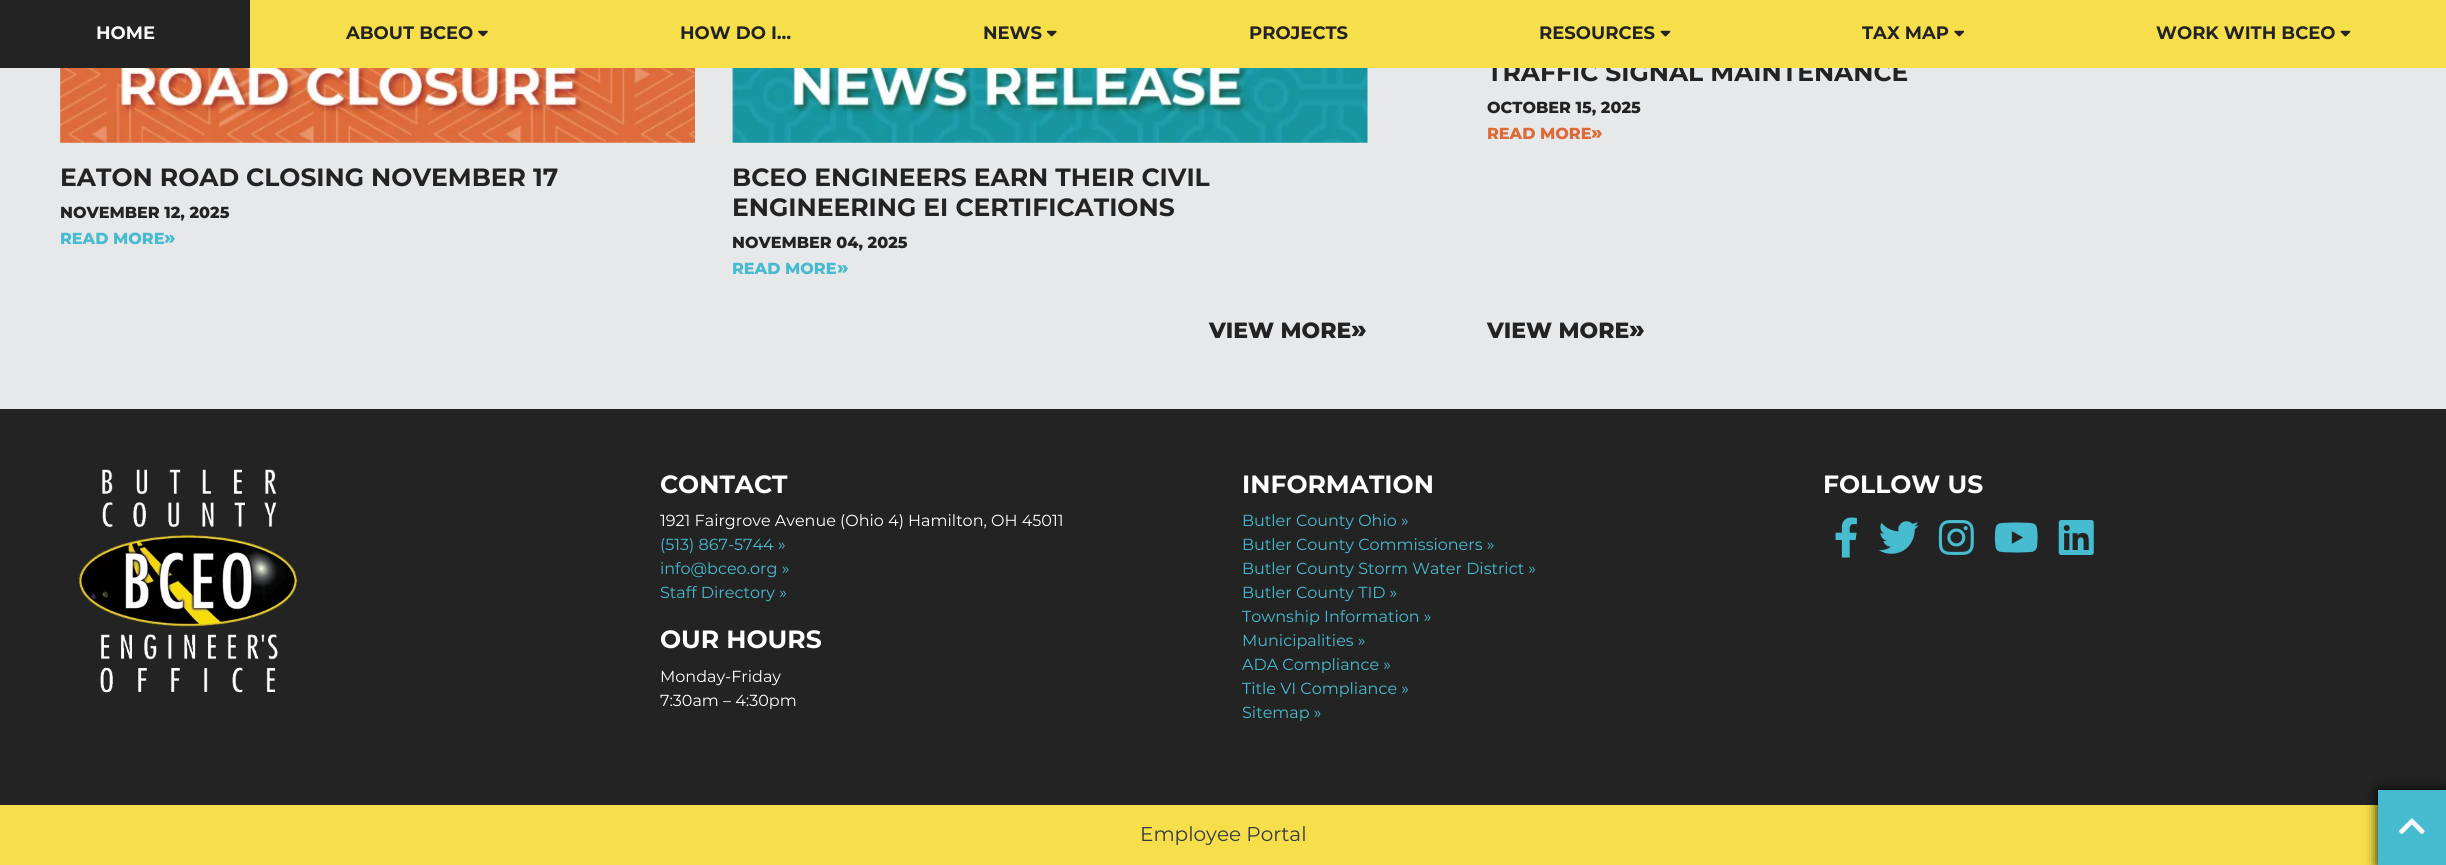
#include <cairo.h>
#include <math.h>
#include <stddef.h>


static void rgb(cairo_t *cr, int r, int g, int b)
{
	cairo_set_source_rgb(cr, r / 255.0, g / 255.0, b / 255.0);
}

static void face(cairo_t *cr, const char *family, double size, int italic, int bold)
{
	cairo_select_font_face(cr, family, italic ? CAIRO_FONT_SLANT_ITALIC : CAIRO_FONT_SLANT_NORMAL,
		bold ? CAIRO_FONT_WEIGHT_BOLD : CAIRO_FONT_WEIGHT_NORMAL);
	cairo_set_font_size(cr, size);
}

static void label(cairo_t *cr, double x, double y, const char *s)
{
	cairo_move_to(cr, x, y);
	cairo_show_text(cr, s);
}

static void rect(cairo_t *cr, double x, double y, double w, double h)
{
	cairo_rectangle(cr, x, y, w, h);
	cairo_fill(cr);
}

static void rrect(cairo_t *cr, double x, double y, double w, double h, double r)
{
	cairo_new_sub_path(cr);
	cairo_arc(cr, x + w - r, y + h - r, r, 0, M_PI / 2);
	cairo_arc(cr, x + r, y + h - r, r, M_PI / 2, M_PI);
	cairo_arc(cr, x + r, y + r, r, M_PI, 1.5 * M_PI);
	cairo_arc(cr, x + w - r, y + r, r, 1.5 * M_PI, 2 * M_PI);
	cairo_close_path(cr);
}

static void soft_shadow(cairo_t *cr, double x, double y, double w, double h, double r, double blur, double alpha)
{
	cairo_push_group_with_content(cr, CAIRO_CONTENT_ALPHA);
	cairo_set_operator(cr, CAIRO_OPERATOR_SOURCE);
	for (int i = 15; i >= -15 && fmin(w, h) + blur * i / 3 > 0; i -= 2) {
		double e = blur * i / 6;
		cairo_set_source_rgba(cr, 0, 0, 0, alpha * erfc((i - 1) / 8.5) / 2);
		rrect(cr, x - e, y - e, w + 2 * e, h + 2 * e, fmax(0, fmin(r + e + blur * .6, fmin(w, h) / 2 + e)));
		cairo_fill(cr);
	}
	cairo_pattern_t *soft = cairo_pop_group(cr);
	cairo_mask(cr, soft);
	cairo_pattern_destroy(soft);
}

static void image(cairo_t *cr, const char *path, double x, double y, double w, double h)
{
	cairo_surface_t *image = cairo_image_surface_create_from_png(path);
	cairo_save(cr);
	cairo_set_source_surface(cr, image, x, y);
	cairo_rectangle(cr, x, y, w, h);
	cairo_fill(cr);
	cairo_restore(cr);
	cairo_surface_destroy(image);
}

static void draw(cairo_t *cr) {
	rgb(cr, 231, 232, 233);
	cairo_paint(cr);
	rgb(cr, 35, 35, 35);
	rect(cr, 0, 0, 250, 68);
	face(cr, "Montserrat", 18, 0, 1);
	rgb(cr, 248, 248, 252);
	label(cr, 96, 39, "HOME");
	face(cr, "Montserrat", 25, 0, 1);
	rgb(cr, 35, 35, 35);
	label(cr, 1487, 81, "TRAFFIC SIGNAL MAINTENANCE");
	rgb(cr, 246, 223, 75);
	rect(cr, 250, 0, 2196, 68);
	face(cr, "Montserrat", 18, 0, 1);
	rgb(cr, 35, 35, 35);
	label(cr, 346, 39, "ABOUT BCEO");
	image(cr, "image0.png", 478, 30, 10, 7);
	label(cr, 680, 39, "HOW DO I…");
	label(cr, 983, 39, "NEWS");
	image(cr, "image1.png", 1046, 30, 11, 7);
	label(cr, 1249, 39, "PROJECTS");
	label(cr, 1539, 39, "RESOURCES");
	image(cr, "image2.png", 1660, 30, 11, 7);
	label(cr, 1862, 39, "TAX MAP");
	image(cr, "image3.png", 1954, 30, 11, 7);
	label(cr, 2156, 39, "WORK WITH BCEO");
	image(cr, "image2.png", 2340, 30, 11, 7);
	image(cr, "image4.png", 60, 68, 635, 75);
	face(cr, "Montserrat", 25, 0, 1);
	label(cr, 60, 186, "EATON ROAD CLOSING NOVEMBER 17");
	face(cr, "Montserrat ExtraBold", 16, 0, 0);
	label(cr, 60, 218, "NOVEMBER 12, 2025");
	rgb(cr, 71, 187, 208);
	label(cr, 60, 244, "READ MORE");
	face(cr, "Montserrat ExtraBold", 19, 0, 0);
	label(cr, 164, 244, "»");
	image(cr, "image5.png", 732, 68, 636, 75);
	face(cr, "Montserrat", 25, 0, 1);
	rgb(cr, 35, 35, 35);
	label(cr, 732, 186, "BCEO ENGINEERS EARN THEIR CIVIL");
	label(cr, 732, 216, "ENGINEERING EI CERTIFICATIONS");
	face(cr, "Montserrat ExtraBold", 16, 0, 0);
	label(cr, 732, 248, "NOVEMBER 04, 2025");
	rgb(cr, 71, 187, 208);
	label(cr, 732, 274, "READ MORE");
	face(cr, "Montserrat ExtraBold", 19, 0, 0);
	label(cr, 837, 274, "»");
	face(cr, "Montserrat ExtraBold", 22, 0, 0);
	rgb(cr, 35, 35, 35);
	label(cr, 1209, 338, "VIEW MORE");
	face(cr, "Montserrat ExtraBold", 26, 0, 0);
	label(cr, 1351, 338, "»");
	face(cr, "Montserrat ExtraBold", 16, 0, 0);
	label(cr, 1487, 113, "OCTOBER 15, 2025");
	rgb(cr, 219, 107, 56);
	label(cr, 1487, 139, "READ MORE");
	face(cr, "Montserrat ExtraBold", 19, 0, 0);
	label(cr, 1591, 139, "»");
	face(cr, "Montserrat ExtraBold", 22, 0, 0);
	rgb(cr, 35, 35, 35);
	label(cr, 1487, 338, "VIEW MORE");
	face(cr, "Montserrat ExtraBold", 26, 0, 0);
	label(cr, 1629, 338, "»");
	rect(cr, 0, 409, 2446, 396);
	image(cr, "image6.png", 78, 469, 219, 224);
	face(cr, "Montserrat", 25, 0, 1);
	rgb(cr, 255, 255, 255);
	label(cr, 660, 493, "CONTACT");
	face(cr, "Montserrat", 16, 0, 0);
	label(cr, 660, 526, "1921 Fairgrove Avenue (Ohio 4) Hamilton, OH 45011");
	rgb(cr, 71, 187, 208);
	label(cr, 660, 550, "(513) 867-5744 »");
	label(cr, 660, 574, "info@bceo.org »");
	label(cr, 660, 598, "Staff Directory »");
	face(cr, "Montserrat", 25, 0, 1);
	rgb(cr, 255, 255, 255);
	label(cr, 660, 648, "OUR HOURS");
	face(cr, "Montserrat", 16, 0, 0);
	label(cr, 660, 682, "Monday-Friday");
	label(cr, 660, 706, "7:30am – 4:30pm");
	face(cr, "Montserrat", 25, 0, 1);
	label(cr, 1242, 493, "INFORMATION");
	face(cr, "Montserrat", 16, 0, 0);
	rgb(cr, 71, 187, 208);
	label(cr, 1242, 526, "Butler County Ohio »");
	label(cr, 1242, 550, "Butler County Commissioners »");
	label(cr, 1242, 574, "Butler County Storm Water District »");
	label(cr, 1242, 598, "Butler County TID »");
	label(cr, 1242, 622, "Township Information »");
	label(cr, 1242, 646, "Municipalities »");
	label(cr, 1242, 670, "ADA Compliance »");
	label(cr, 1242, 694, "Title VI Compliance »");
	label(cr, 1242, 718, "Sitemap »");
	face(cr, "Montserrat", 25, 0, 1);
	rgb(cr, 255, 255, 255);
	label(cr, 1823, 493, "FOLLOW US");
	image(cr, "image7.png", 1835, 517, 22, 41);
	image(cr, "image8.png", 1879, 521, 40, 33);
	image(cr, "image9.png", 1938, 520, 36, 35);
	image(cr, "image10.png", 1994, 522, 44, 31);
	image(cr, "image11.png", 2058, 520, 36, 35);
	rgb(cr, 246, 223, 75);
	rect(cr, 0, 805, 2378, 60);
	face(cr, "Montserrat", 20, 0, 0);
	rgb(cr, 52, 58, 64);
	label(cr, 1140, 841, "Employee Portal");
	rgb(cr, 0, 0, 0);
	soft_shadow(cr, 2378, 790, 68, 75, 0, 6, 1);
	rgb(cr, 71, 187, 208);
	rect(cr, 2378, 790, 68, 75);
	image(cr, "image12.png", 2399, 818, 26, 16);
}

int main(void) {
	cairo_surface_t *surface = cairo_image_surface_create(CAIRO_FORMAT_RGB24, 2446, 865);
	cairo_t *cr = cairo_create(surface);
	cairo_font_options_t *options = cairo_font_options_create();
	cairo_font_options_set_hint_metrics(options, CAIRO_HINT_METRICS_OFF);
	cairo_font_options_set_hint_style(options, CAIRO_HINT_STYLE_NONE);
	cairo_set_font_options(cr, options);
	cairo_set_miter_limit(cr, 4);
	draw(cr);
	cairo_surface_write_to_png(surface, "render.png");
	cairo_font_options_destroy(options);
	cairo_destroy(cr);
	cairo_surface_destroy(surface);
	return 0;
}
